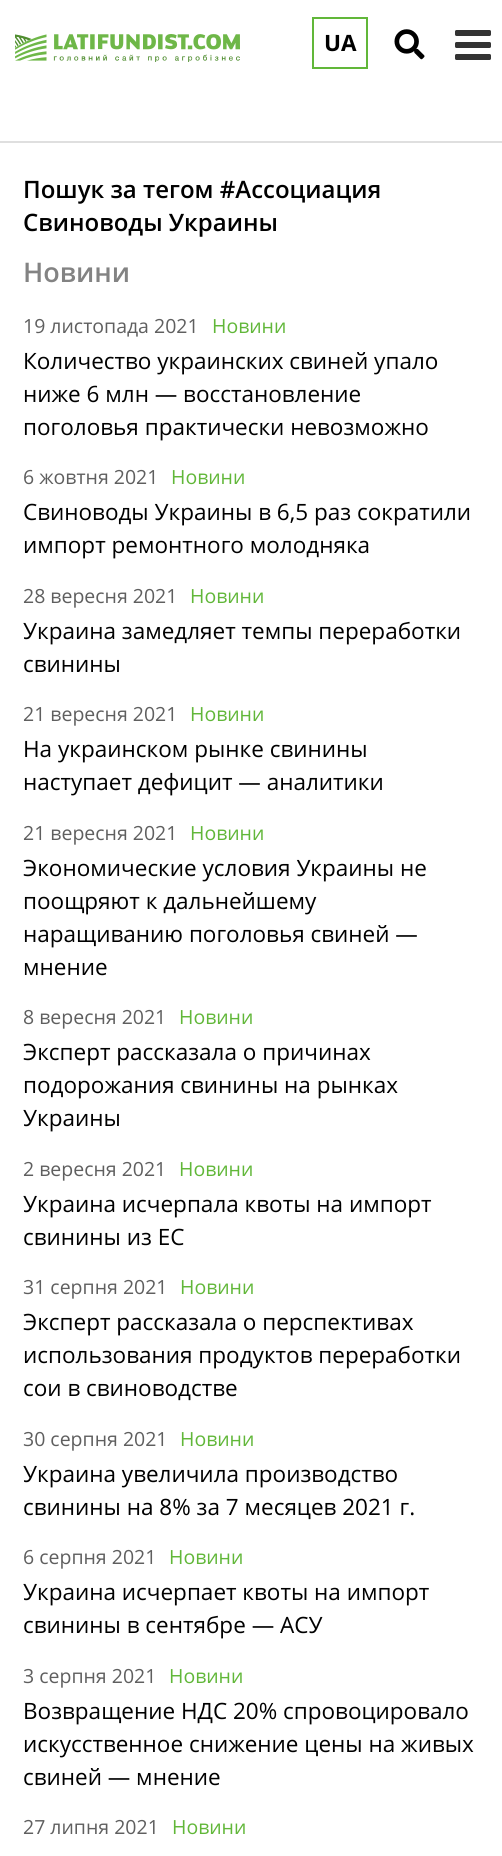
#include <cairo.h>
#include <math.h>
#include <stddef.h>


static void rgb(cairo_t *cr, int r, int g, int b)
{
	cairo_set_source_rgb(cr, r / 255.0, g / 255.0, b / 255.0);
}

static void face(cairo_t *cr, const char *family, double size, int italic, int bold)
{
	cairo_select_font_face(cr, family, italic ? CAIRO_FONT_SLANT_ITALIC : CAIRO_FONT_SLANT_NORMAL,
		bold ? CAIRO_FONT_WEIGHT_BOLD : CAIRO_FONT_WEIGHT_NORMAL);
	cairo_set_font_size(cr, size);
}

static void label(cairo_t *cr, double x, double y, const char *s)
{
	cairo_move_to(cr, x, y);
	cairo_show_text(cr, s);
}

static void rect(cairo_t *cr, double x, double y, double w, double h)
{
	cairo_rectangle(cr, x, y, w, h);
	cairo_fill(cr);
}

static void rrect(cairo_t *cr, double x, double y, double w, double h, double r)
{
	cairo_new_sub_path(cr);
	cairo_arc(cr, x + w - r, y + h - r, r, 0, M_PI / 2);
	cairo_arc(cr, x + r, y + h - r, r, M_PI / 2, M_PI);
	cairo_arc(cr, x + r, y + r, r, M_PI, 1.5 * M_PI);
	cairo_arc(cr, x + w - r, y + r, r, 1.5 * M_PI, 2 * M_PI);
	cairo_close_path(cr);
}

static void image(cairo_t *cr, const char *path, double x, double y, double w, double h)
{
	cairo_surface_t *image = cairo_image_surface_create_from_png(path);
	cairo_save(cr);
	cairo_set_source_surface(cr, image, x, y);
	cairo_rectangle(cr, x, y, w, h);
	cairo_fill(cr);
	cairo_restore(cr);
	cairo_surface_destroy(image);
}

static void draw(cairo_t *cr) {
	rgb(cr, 255, 255, 255);
	cairo_paint(cr);
	rgb(cr, 223, 223, 223);
	rect(cr, 0, 141, 502, 2);
	image(cr, "image0.png", 15, 34, 225, 28);
	cairo_rectangle(cr, 313, 18, 54, 50);
	rgb(cr, 97, 183, 57);
	cairo_stroke(cr);
	face(cr, "Open Sans", 22.5, 0, 1);
	rgb(cr, 0, 0, 0);
	label(cr, 324, 51, "UA");
	image(cr, "image1.png", 394, 29, 31, 31);
	rgb(cr, 51, 51, 51);
	rrect(cr, 455, 42, 36, 6, 1.5);
	cairo_fill(cr);
	rrect(cr, 455, 30, 36, 6, 1.5);
	cairo_fill(cr);
	rrect(cr, 455, 54, 36, 6, 1.5);
	cairo_fill(cr);
	face(cr, "Open Sans SemiBold", 24, 0, 0);
	rgb(cr, 0, 0, 0);
	label(cr, 23, 198, "Пошук за тегом #Ассоциация");
	label(cr, 23, 231, "Свиноводы Украины");
	face(cr, "Open Sans SemiBold", 27, 0, 0);
	rgb(cr, 131, 131, 131);
	label(cr, 23, 282, "Новини");
	face(cr, "Open Sans", 19.5, 0, 0);
	rgb(cr, 95, 95, 95);
	label(cr, 23, 333, "19 листопада 2021");
	rgb(cr, 97, 183, 57);
	label(cr, 212, 333, "Новини");
	face(cr, "Open Sans", 22.5, 0, 0);
	rgb(cr, 0, 0, 0);
	label(cr, 23, 369, "Количество украинских свиней упало");
	label(cr, 23, 402, "ниже 6 млн — восстановление");
	label(cr, 23, 435, "поголовья практически невозможно");
	face(cr, "Open Sans", 19.5, 0, 0);
	rgb(cr, 95, 95, 95);
	label(cr, 23, 484, "6 жовтня 2021");
	rgb(cr, 97, 183, 57);
	label(cr, 171, 484, "Новини");
	face(cr, "Open Sans", 22.5, 0, 0);
	rgb(cr, 0, 0, 0);
	label(cr, 23, 520, "Свиноводы Украины в 6,5 раз сократили");
	label(cr, 23, 553, "импорт ремонтного молодняка");
	face(cr, "Open Sans", 19.5, 0, 0);
	rgb(cr, 95, 95, 95);
	label(cr, 23, 603, "28 вересня 2021");
	rgb(cr, 97, 183, 57);
	label(cr, 190, 603, "Новини");
	face(cr, "Open Sans", 22.5, 0, 0);
	rgb(cr, 0, 0, 0);
	label(cr, 23, 639, "Украина замедляет темпы переработки");
	label(cr, 23, 672, "свинины");
	face(cr, "Open Sans", 19.5, 0, 0);
	rgb(cr, 95, 95, 95);
	label(cr, 23, 721, "21 вересня 2021");
	rgb(cr, 97, 183, 57);
	label(cr, 190, 721, "Новини");
	face(cr, "Open Sans", 22.5, 0, 0);
	rgb(cr, 0, 0, 0);
	label(cr, 23, 757, "На украинском рынке свинины");
	label(cr, 23, 790, "наступает дефицит — аналитики");
	face(cr, "Open Sans", 19.5, 0, 0);
	rgb(cr, 95, 95, 95);
	label(cr, 23, 840, "21 вересня 2021");
	rgb(cr, 97, 183, 57);
	label(cr, 190, 840, "Новини");
	face(cr, "Open Sans", 22.5, 0, 0);
	rgb(cr, 0, 0, 0);
	label(cr, 23, 876, "Экономические условия Украины не");
	label(cr, 23, 909, "поощряют к дальнейшему");
	label(cr, 23, 942, "наращиванию поголовья свиней —");
	label(cr, 23, 975, "мнение");
	face(cr, "Open Sans", 19.5, 0, 0);
	rgb(cr, 95, 95, 95);
	label(cr, 23, 1024, "8 вересня 2021");
	rgb(cr, 97, 183, 57);
	label(cr, 179, 1024, "Новини");
	face(cr, "Open Sans", 22.5, 0, 0);
	rgb(cr, 0, 0, 0);
	label(cr, 23, 1060, "Эксперт рассказала о причинах");
	label(cr, 23, 1093, "подорожания свинины на рынках");
	label(cr, 23, 1126, "Украины");
	face(cr, "Open Sans", 19.5, 0, 0);
	rgb(cr, 95, 95, 95);
	label(cr, 23, 1176, "2 вересня 2021");
	rgb(cr, 97, 183, 57);
	label(cr, 179, 1176, "Новини");
	face(cr, "Open Sans", 22.5, 0, 0);
	rgb(cr, 0, 0, 0);
	label(cr, 23, 1212, "Украина исчерпала квоты на импорт");
	label(cr, 23, 1245, "свинины из ЕС");
	face(cr, "Open Sans", 19.5, 0, 0);
	rgb(cr, 95, 95, 95);
	label(cr, 23, 1294, "31 серпня 2021");
	rgb(cr, 97, 183, 57);
	label(cr, 180, 1294, "Новини");
	face(cr, "Open Sans", 22.5, 0, 0);
	rgb(cr, 0, 0, 0);
	label(cr, 23, 1330, "Эксперт рассказала о перспективах");
	label(cr, 23, 1363, "использования продуктов переработки");
	label(cr, 23, 1396, "сои в свиноводстве");
	face(cr, "Open Sans", 19.5, 0, 0);
	rgb(cr, 95, 95, 95);
	label(cr, 23, 1446, "30 серпня 2021");
	rgb(cr, 97, 183, 57);
	label(cr, 180, 1446, "Новини");
	face(cr, "Open Sans", 22.5, 0, 0);
	rgb(cr, 0, 0, 0);
	label(cr, 23, 1482, "Украина увеличила производство");
	label(cr, 23, 1515, "свинины на 8% за 7 месяцев 2021 г.");
	face(cr, "Open Sans", 19.5, 0, 0);
	rgb(cr, 95, 95, 95);
	label(cr, 23, 1564, "6 серпня 2021");
	rgb(cr, 97, 183, 57);
	label(cr, 169, 1564, "Новини");
	face(cr, "Open Sans", 22.5, 0, 0);
	rgb(cr, 0, 0, 0);
	label(cr, 23, 1600, "Украина исчерпает квоты на импорт");
	label(cr, 23, 1633, "свинины в сентябре — АСУ");
	face(cr, "Open Sans", 19.5, 0, 0);
	rgb(cr, 95, 95, 95);
	label(cr, 23, 1683, "3 серпня 2021");
	rgb(cr, 97, 183, 57);
	label(cr, 169, 1683, "Новини");
	face(cr, "Open Sans", 22.5, 0, 0);
	rgb(cr, 0, 0, 0);
	label(cr, 23, 1719, "Возвращение НДС 20% спровоцировало");
	label(cr, 23, 1752, "искусственное снижение цены на живых");
	label(cr, 23, 1785, "свиней — мнение");
	face(cr, "Open Sans", 19.5, 0, 0);
	rgb(cr, 95, 95, 95);
	label(cr, 23, 1834, "27 липня 2021");
	rgb(cr, 97, 183, 57);
	label(cr, 172, 1834, "Новини");
}

int main(void) {
	cairo_surface_t *surface = cairo_image_surface_create(CAIRO_FORMAT_RGB24, 502, 1856);
	cairo_t *cr = cairo_create(surface);
	cairo_font_options_t *options = cairo_font_options_create();
	cairo_font_options_set_hint_metrics(options, CAIRO_HINT_METRICS_OFF);
	cairo_font_options_set_hint_style(options, CAIRO_HINT_STYLE_NONE);
	cairo_set_font_options(cr, options);
	cairo_set_miter_limit(cr, 4);
	draw(cr);
	cairo_surface_write_to_png(surface, "render.png");
	cairo_font_options_destroy(options);
	cairo_destroy(cr);
	cairo_surface_destroy(surface);
	return 0;
}
